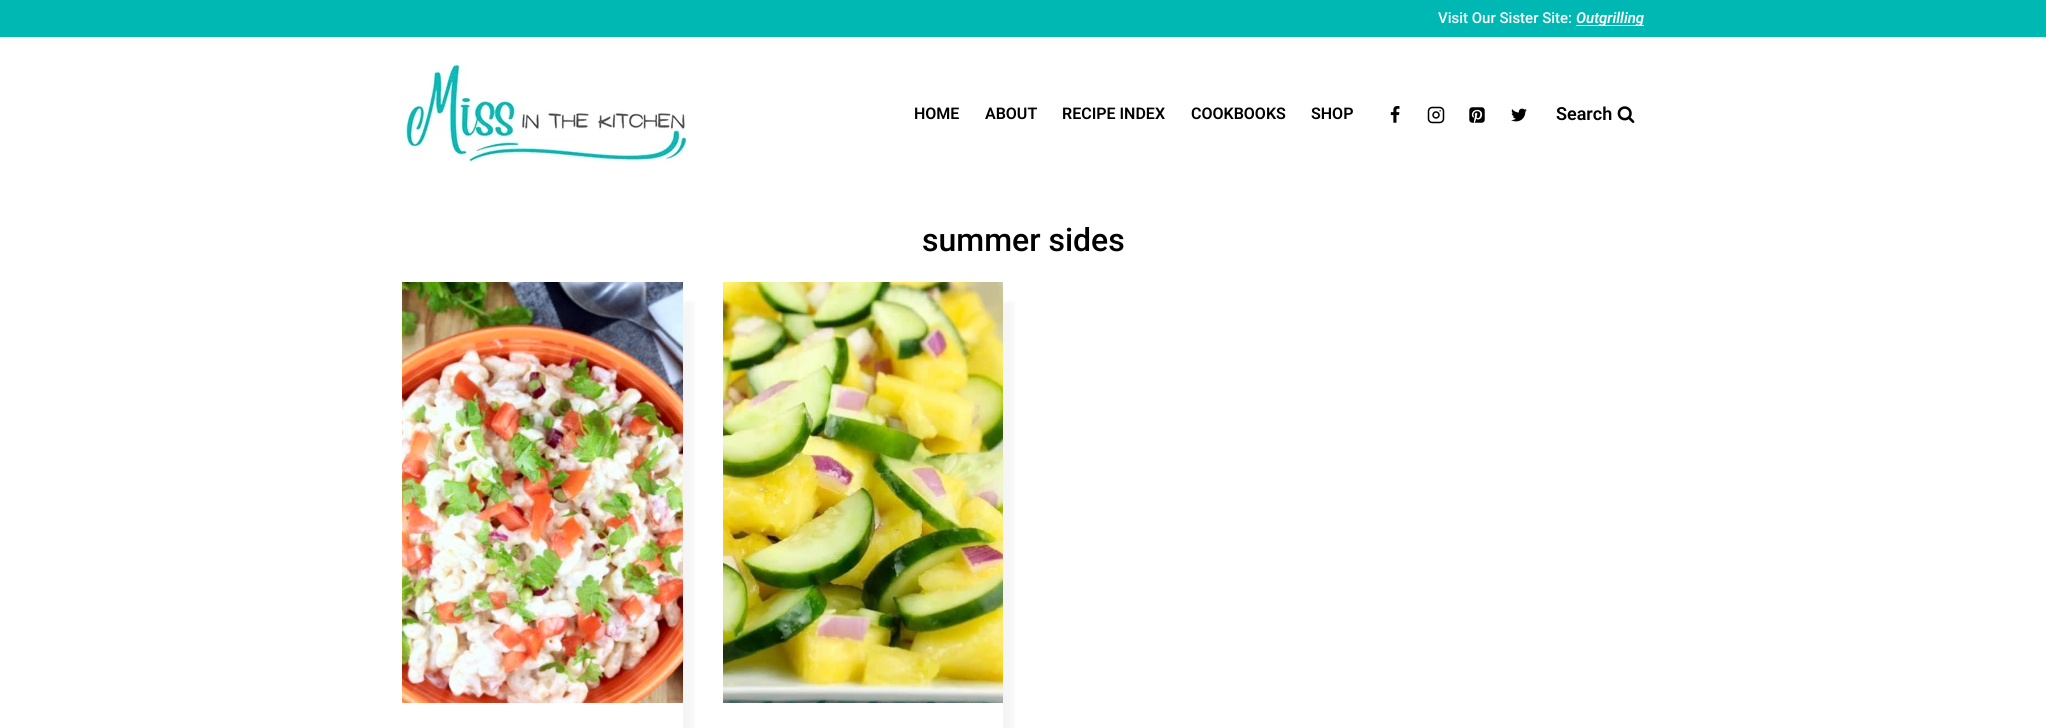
#include <cairo.h>
#include <math.h>
#include <stddef.h>


static void rgb(cairo_t *cr, int r, int g, int b)
{
	cairo_set_source_rgb(cr, r / 255.0, g / 255.0, b / 255.0);
}

static void face(cairo_t *cr, const char *family, double size, int italic, int bold)
{
	cairo_select_font_face(cr, family, italic ? CAIRO_FONT_SLANT_ITALIC : CAIRO_FONT_SLANT_NORMAL,
		bold ? CAIRO_FONT_WEIGHT_BOLD : CAIRO_FONT_WEIGHT_NORMAL);
	cairo_set_font_size(cr, size);
}

static void label(cairo_t *cr, double x, double y, const char *s)
{
	cairo_move_to(cr, x, y);
	cairo_show_text(cr, s);
}

static void rect(cairo_t *cr, double x, double y, double w, double h)
{
	cairo_rectangle(cr, x, y, w, h);
	cairo_fill(cr);
}

static void rrect(cairo_t *cr, double x, double y, double w, double h, double r)
{
	cairo_new_sub_path(cr);
	cairo_arc(cr, x + w - r, y + h - r, r, 0, M_PI / 2);
	cairo_arc(cr, x + r, y + h - r, r, M_PI / 2, M_PI);
	cairo_arc(cr, x + r, y + r, r, M_PI, 1.5 * M_PI);
	cairo_arc(cr, x + w - r, y + r, r, 1.5 * M_PI, 2 * M_PI);
	cairo_close_path(cr);
}

static void soft_shadow(cairo_t *cr, double x, double y, double w, double h, double r, double blur, double alpha)
{
	cairo_push_group_with_content(cr, CAIRO_CONTENT_ALPHA);
	cairo_set_operator(cr, CAIRO_OPERATOR_SOURCE);
	for (int i = 15; i >= -15 && fmin(w, h) + blur * i / 3 > 0; i -= 2) {
		double e = blur * i / 6;
		cairo_set_source_rgba(cr, 0, 0, 0, alpha * erfc((i - 1) / 8.5) / 2);
		rrect(cr, x - e, y - e, w + 2 * e, h + 2 * e, fmax(0, fmin(r + e + blur * .6, fmin(w, h) / 2 + e)));
		cairo_fill(cr);
	}
	cairo_pattern_t *soft = cairo_pop_group(cr);
	cairo_mask(cr, soft);
	cairo_pattern_destroy(soft);
}

static void image(cairo_t *cr, const char *path, double x, double y, double w, double h)
{
	cairo_surface_t *image = cairo_image_surface_create_from_png(path);
	cairo_save(cr);
	cairo_set_source_surface(cr, image, x, y);
	cairo_rectangle(cr, x, y, w, h);
	cairo_fill(cr);
	cairo_restore(cr);
	cairo_surface_destroy(image);
}

static void draw(cairo_t *cr) {
	rgb(cr, 255, 255, 255);
	cairo_paint(cr);
	rgb(cr, 0, 184, 179);
	rect(cr, 0, 0, 2046, 37);
	face(cr, "Roboto Medium", 15, 0, 0);
	rgb(cr, 255, 255, 255);
	label(cr, 1438, 23, "Visit Our Sister Site:");
	rect(cr, 1576, 25, 68, 1);
	face(cr, "Roboto SemiBold", 15, 1, 0);
	label(cr, 1576, 23, "Outgrilling");
	image(cr, "image0.png", 402, 60, 285, 103);
	face(cr, "Roboto SemiBold", 16, 0, 0);
	rgb(cr, 0, 0, 0);
	label(cr, 914, 119, "HOME");
	label(cr, 985, 119, "ABOUT");
	label(cr, 1062, 119, "RECIPE INDEX");
	label(cr, 1191, 119, "COOKBOOKS");
	label(cr, 1311, 119, "SHOP");
	image(cr, "image1.png", 1390, 106, 10, 17);
	image(cr, "image2.png", 1427, 106, 18, 18);
	image(cr, "image3.png", 1469, 107, 16, 16);
	image(cr, "image4.png", 1511, 108, 16, 14);
	face(cr, "Roboto SemiBold", 18, 0, 0);
	label(cr, 1556, 120, "Search");
	image(cr, "image5.png", 1617, 106, 18, 17);
	face(cr, "Roboto Medium", 32, 0, 0);
	label(cr, 922, 251, "summer sides");
	cairo_save(cr);
	cairo_rectangle(cr, 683, 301, 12, 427);
	cairo_clip(cr);
	rgb(cr, 0, 0, 0);
	soft_shadow(cr, 422, 302, 271, 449, 0, 7.5, 0.05);
	cairo_restore(cr);
	image(cr, "image6.png", 402, 282, 281, 421);
	cairo_save(cr);
	cairo_rectangle(cr, 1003, 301, 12, 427);
	cairo_clip(cr);
	rgb(cr, 0, 0, 0);
	soft_shadow(cr, 743, 302, 270, 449, 0, 7.5, 0.05);
	cairo_restore(cr);
	image(cr, "image7.png", 723, 282, 280, 421);
}

int main(void) {
	cairo_surface_t *surface = cairo_image_surface_create(CAIRO_FORMAT_RGB24, 2046, 728);
	cairo_t *cr = cairo_create(surface);
	cairo_font_options_t *options = cairo_font_options_create();
	cairo_font_options_set_hint_metrics(options, CAIRO_HINT_METRICS_OFF);
	cairo_font_options_set_hint_style(options, CAIRO_HINT_STYLE_NONE);
	cairo_set_font_options(cr, options);
	cairo_set_miter_limit(cr, 4);
	draw(cr);
	cairo_surface_write_to_png(surface, "render.png");
	cairo_font_options_destroy(options);
	cairo_destroy(cr);
	cairo_surface_destroy(surface);
	return 0;
}
